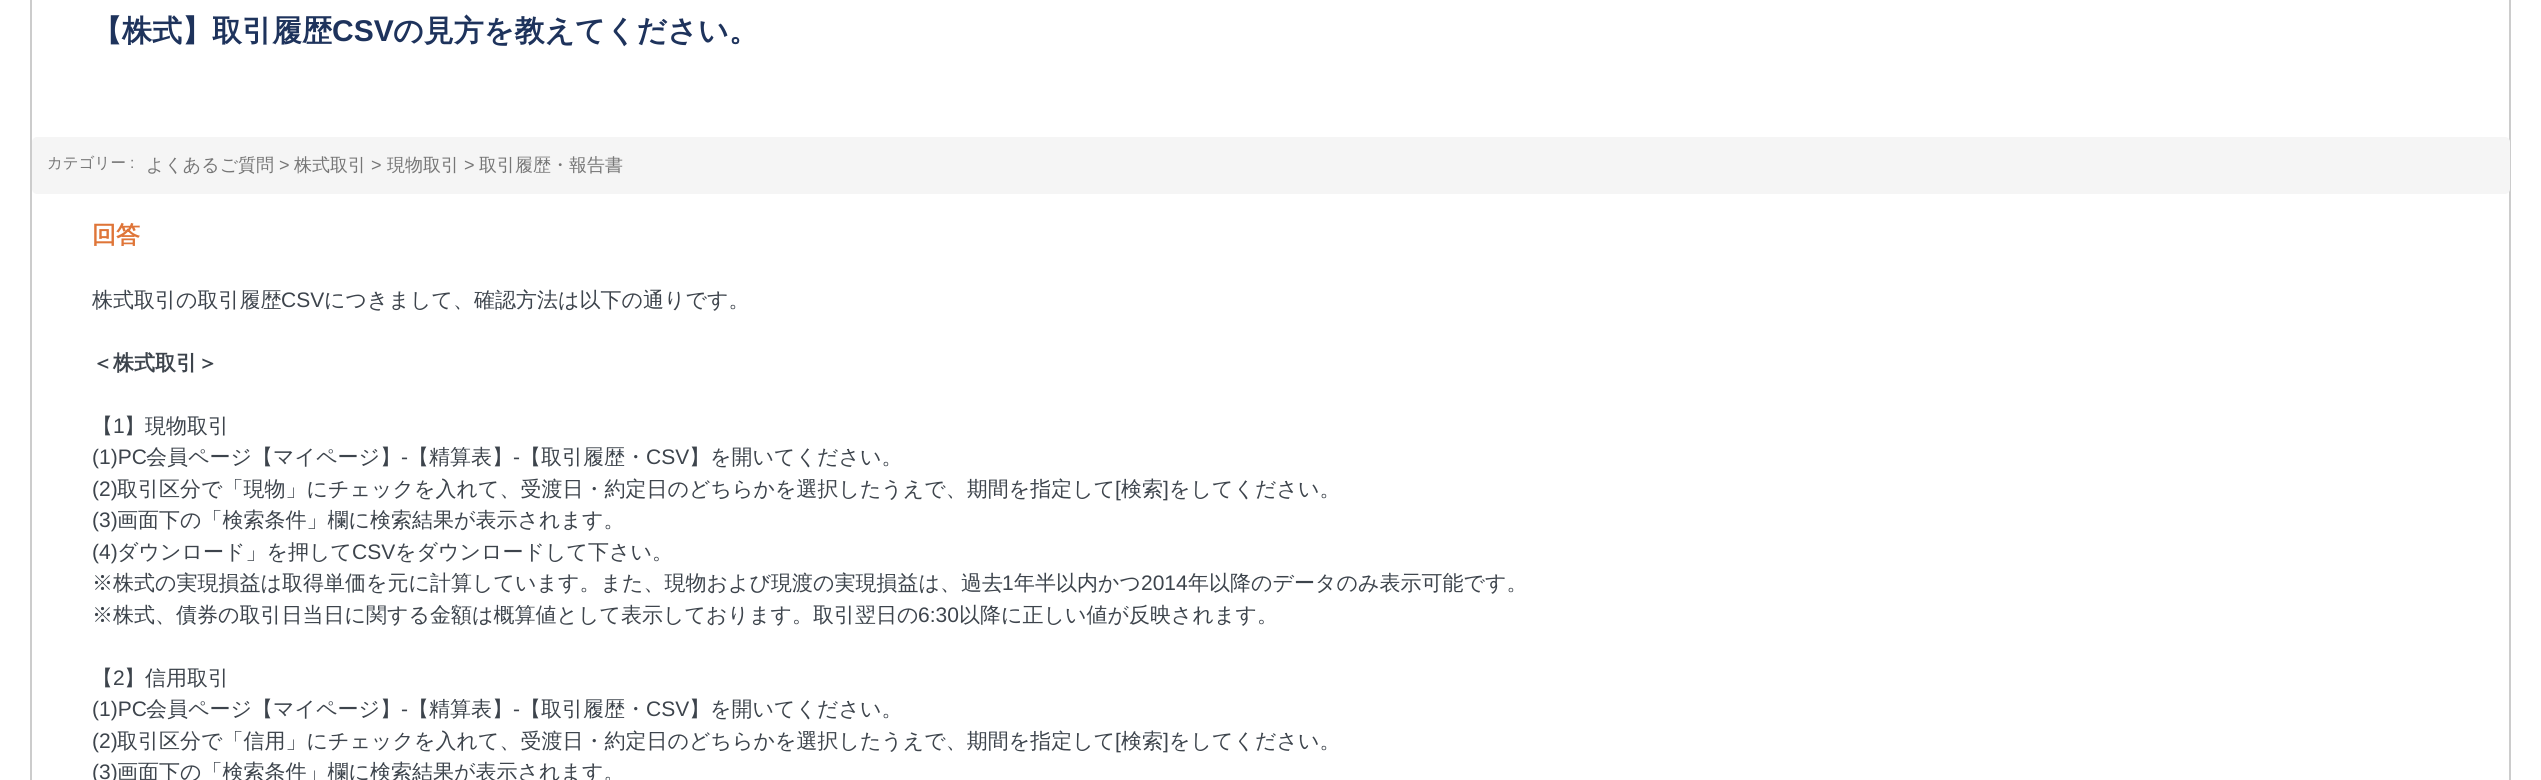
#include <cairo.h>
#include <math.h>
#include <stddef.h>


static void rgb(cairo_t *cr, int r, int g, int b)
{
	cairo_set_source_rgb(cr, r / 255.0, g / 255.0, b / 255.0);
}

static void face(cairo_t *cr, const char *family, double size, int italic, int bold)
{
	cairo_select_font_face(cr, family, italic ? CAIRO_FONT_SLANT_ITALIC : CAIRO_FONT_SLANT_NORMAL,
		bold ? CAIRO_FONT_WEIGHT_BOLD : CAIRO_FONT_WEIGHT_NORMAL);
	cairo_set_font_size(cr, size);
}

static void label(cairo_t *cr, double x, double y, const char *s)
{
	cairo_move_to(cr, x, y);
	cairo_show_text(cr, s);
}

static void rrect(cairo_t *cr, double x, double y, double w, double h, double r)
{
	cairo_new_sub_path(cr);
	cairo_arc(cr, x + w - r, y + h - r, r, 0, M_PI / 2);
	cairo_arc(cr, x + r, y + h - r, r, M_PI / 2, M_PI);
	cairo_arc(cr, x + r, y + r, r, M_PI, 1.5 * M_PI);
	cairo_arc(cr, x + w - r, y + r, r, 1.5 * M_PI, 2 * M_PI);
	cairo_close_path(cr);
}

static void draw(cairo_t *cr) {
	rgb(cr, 255, 255, 255);
	cairo_paint(cr);
	cairo_rectangle(cr, 31, -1, 2479, 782);
	rgb(cr, 204, 204, 204);
	cairo_stroke(cr);
	face(cr, "WenQuanYi Zen Hei", 30, 0, 1);
	rgb(cr, 30, 51, 92);
	label(cr, 92, 41, "【株式】取引履歴");
	face(cr, "Liberation Sans", 30, 0, 1);
	label(cr, 332, 41, "CSV");
	face(cr, "WenQuanYi Zen Hei", 30, 0, 1);
	label(cr, 393, 41, "の見方を教えてください。");
	rgb(cr, 245, 245, 245);
	rrect(cr, 32, 137, 2478, 57, 5);
	cairo_fill(cr);
	face(cr, "WenQuanYi Zen Hei Medium", 15.5, 0, 0);
	rgb(cr, 118, 118, 118);
	label(cr, 47, 168, "カテゴリー");
	face(cr, "Liberation Sans", 15.5, 0, 0);
	label(cr, 130, 168, ":");
	face(cr, "WenQuanYi Zen Hei Medium", 18, 0, 0);
	label(cr, 146, 171, "よくあるご質問");
	face(cr, "Liberation Sans", 18, 0, 0);
	label(cr, 279, 171, ">");
	face(cr, "WenQuanYi Zen Hei Medium", 18, 0, 0);
	label(cr, 294, 171, "株式取引");
	face(cr, "Liberation Sans", 18, 0, 0);
	label(cr, 371, 171, ">");
	face(cr, "WenQuanYi Zen Hei Medium", 18, 0, 0);
	label(cr, 387, 171, "現物取引");
	face(cr, "Liberation Sans", 18, 0, 0);
	label(cr, 464, 171, ">");
	face(cr, "WenQuanYi Zen Hei Medium", 18, 0, 0);
	label(cr, 479, 171, "取引履歴・報告書");
	face(cr, "WenQuanYi Zen Hei", 24, 0, 1);
	rgb(cr, 223, 117, 56);
	label(cr, 92, 243, "回答");
	face(cr, "WenQuanYi Zen Hei Medium", 21, 0, 0);
	rgb(cr, 61, 68, 76);
	label(cr, 92, 307, "株式取引の取引履歴");
	face(cr, "Liberation Sans", 21, 0, 0);
	label(cr, 281, 307, "CSV");
	face(cr, "WenQuanYi Zen Hei Medium", 21, 0, 0);
	label(cr, 324, 307, "につきまして、確認方法は以下の通りです。");
	face(cr, "WenQuanYi Zen Hei", 21, 0, 1);
	label(cr, 92, 370, "＜株式取引＞");
	face(cr, "WenQuanYi Zen Hei Medium", 21, 0, 0);
	label(cr, 92, 433, "【");
	face(cr, "Liberation Sans", 21, 0, 0);
	label(cr, 113, 433, "1");
	face(cr, "WenQuanYi Zen Hei Medium", 21, 0, 0);
	label(cr, 124, 433, "】現物取引");
	face(cr, "Liberation Sans", 21, 0, 0);
	label(cr, 92, 464, "(1)PC");
	face(cr, "WenQuanYi Zen Hei Medium", 21, 0, 0);
	label(cr, 146, 464, "会員ページ【マイページ】");
	face(cr, "Liberation Sans", 21, 0, 0);
	label(cr, 401, 464, "-");
	face(cr, "WenQuanYi Zen Hei Medium", 21, 0, 0);
	label(cr, 408, 464, "【精算表】");
	face(cr, "Liberation Sans", 21, 0, 0);
	label(cr, 513, 464, "-");
	face(cr, "WenQuanYi Zen Hei Medium", 21, 0, 0);
	label(cr, 520, 464, "【取引履歴・");
	face(cr, "Liberation Sans", 21, 0, 0);
	label(cr, 646, 464, "CSV");
	face(cr, "WenQuanYi Zen Hei Medium", 21, 0, 0);
	label(cr, 689, 464, "】を開いてください。");
	face(cr, "Liberation Sans", 21, 0, 0);
	label(cr, 92, 496, "(2)");
	face(cr, "WenQuanYi Zen Hei Medium", 21, 0, 0);
	label(cr, 117, 496, "取引区分で「現物」にチェックを入れて、受渡日・約定日のどちらかを選択したうえで、期間を指定して");
	face(cr, "Liberation Sans", 21, 0, 0);
	label(cr, 1115, 496, "[");
	face(cr, "WenQuanYi Zen Hei Medium", 21, 0, 0);
	label(cr, 1121, 496, "検索");
	face(cr, "Liberation Sans", 21, 0, 0);
	label(cr, 1163, 496, "]");
	face(cr, "WenQuanYi Zen Hei Medium", 21, 0, 0);
	label(cr, 1169, 496, "をしてください。");
	face(cr, "Liberation Sans", 21, 0, 0);
	label(cr, 92, 527, "(3)");
	face(cr, "WenQuanYi Zen Hei Medium", 21, 0, 0);
	label(cr, 117, 527, "画面下の「検索条件」欄に検索結果が表示されます。");
	face(cr, "Liberation Sans", 21, 0, 0);
	label(cr, 92, 559, "(4)");
	face(cr, "WenQuanYi Zen Hei Medium", 21, 0, 0);
	label(cr, 117, 559, "ダウンロード」を押して");
	face(cr, "Liberation Sans", 21, 0, 0);
	label(cr, 352, 559, "CSV");
	face(cr, "WenQuanYi Zen Hei Medium", 21, 0, 0);
	label(cr, 395, 559, "をダウンロードして下さい。");
	label(cr, 92, 590, "※株式の実現損益は取得単価を元に計算しています。また、現物および現渡の実現損益は、過去");
	face(cr, "Liberation Sans", 21, 0, 0);
	label(cr, 1002, 590, "1");
	face(cr, "WenQuanYi Zen Hei Medium", 21, 0, 0);
	label(cr, 1014, 590, "年半以内かつ");
	face(cr, "Liberation Sans", 21, 0, 0);
	label(cr, 1141, 590, "2014");
	face(cr, "WenQuanYi Zen Hei Medium", 21, 0, 0);
	label(cr, 1188, 590, "年以降のデータのみ表示可能です。");
	label(cr, 92, 622, "※株式、債券の取引日当日に関する金額は概算値として表示しております。取引翌日の");
	face(cr, "Liberation Sans", 21, 0, 0);
	label(cr, 918, 622, "6:30");
	face(cr, "WenQuanYi Zen Hei Medium", 21, 0, 0);
	label(cr, 959, 622, "以降に正しい値が反映されます。");
	label(cr, 92, 685, "【");
	face(cr, "Liberation Sans", 21, 0, 0);
	label(cr, 113, 685, "2");
	face(cr, "WenQuanYi Zen Hei Medium", 21, 0, 0);
	label(cr, 124, 685, "】信用取引");
	face(cr, "Liberation Sans", 21, 0, 0);
	label(cr, 92, 716, "(1)PC");
	face(cr, "WenQuanYi Zen Hei Medium", 21, 0, 0);
	label(cr, 146, 716, "会員ページ【マイページ】");
	face(cr, "Liberation Sans", 21, 0, 0);
	label(cr, 401, 716, "-");
	face(cr, "WenQuanYi Zen Hei Medium", 21, 0, 0);
	label(cr, 408, 716, "【精算表】");
	face(cr, "Liberation Sans", 21, 0, 0);
	label(cr, 513, 716, "-");
	face(cr, "WenQuanYi Zen Hei Medium", 21, 0, 0);
	label(cr, 520, 716, "【取引履歴・");
	face(cr, "Liberation Sans", 21, 0, 0);
	label(cr, 646, 716, "CSV");
	face(cr, "WenQuanYi Zen Hei Medium", 21, 0, 0);
	label(cr, 689, 716, "】を開いてください。");
	face(cr, "Liberation Sans", 21, 0, 0);
	label(cr, 92, 748, "(2)");
	face(cr, "WenQuanYi Zen Hei Medium", 21, 0, 0);
	label(cr, 117, 748, "取引区分で「信用」にチェックを入れて、受渡日・約定日のどちらかを選択したうえで、期間を指定して");
	face(cr, "Liberation Sans", 21, 0, 0);
	label(cr, 1115, 748, "[");
	face(cr, "WenQuanYi Zen Hei Medium", 21, 0, 0);
	label(cr, 1121, 748, "検索");
	face(cr, "Liberation Sans", 21, 0, 0);
	label(cr, 1163, 748, "]");
	face(cr, "WenQuanYi Zen Hei Medium", 21, 0, 0);
	label(cr, 1169, 748, "をしてください。");
	face(cr, "Liberation Sans", 21, 0, 0);
	label(cr, 92, 779, "(3)");
	face(cr, "WenQuanYi Zen Hei Medium", 21, 0, 0);
	label(cr, 117, 779, "画面下の「検索条件」欄に検索結果が表示されます。");
}

int main(void) {
	cairo_surface_t *surface = cairo_image_surface_create(CAIRO_FORMAT_RGB24, 2541, 780);
	cairo_t *cr = cairo_create(surface);
	cairo_font_options_t *options = cairo_font_options_create();
	cairo_font_options_set_hint_metrics(options, CAIRO_HINT_METRICS_OFF);
	cairo_font_options_set_hint_style(options, CAIRO_HINT_STYLE_NONE);
	cairo_set_font_options(cr, options);
	cairo_set_miter_limit(cr, 4);
	draw(cr);
	cairo_surface_write_to_png(surface, "render.png");
	cairo_font_options_destroy(options);
	cairo_destroy(cr);
	cairo_surface_destroy(surface);
	return 0;
}
